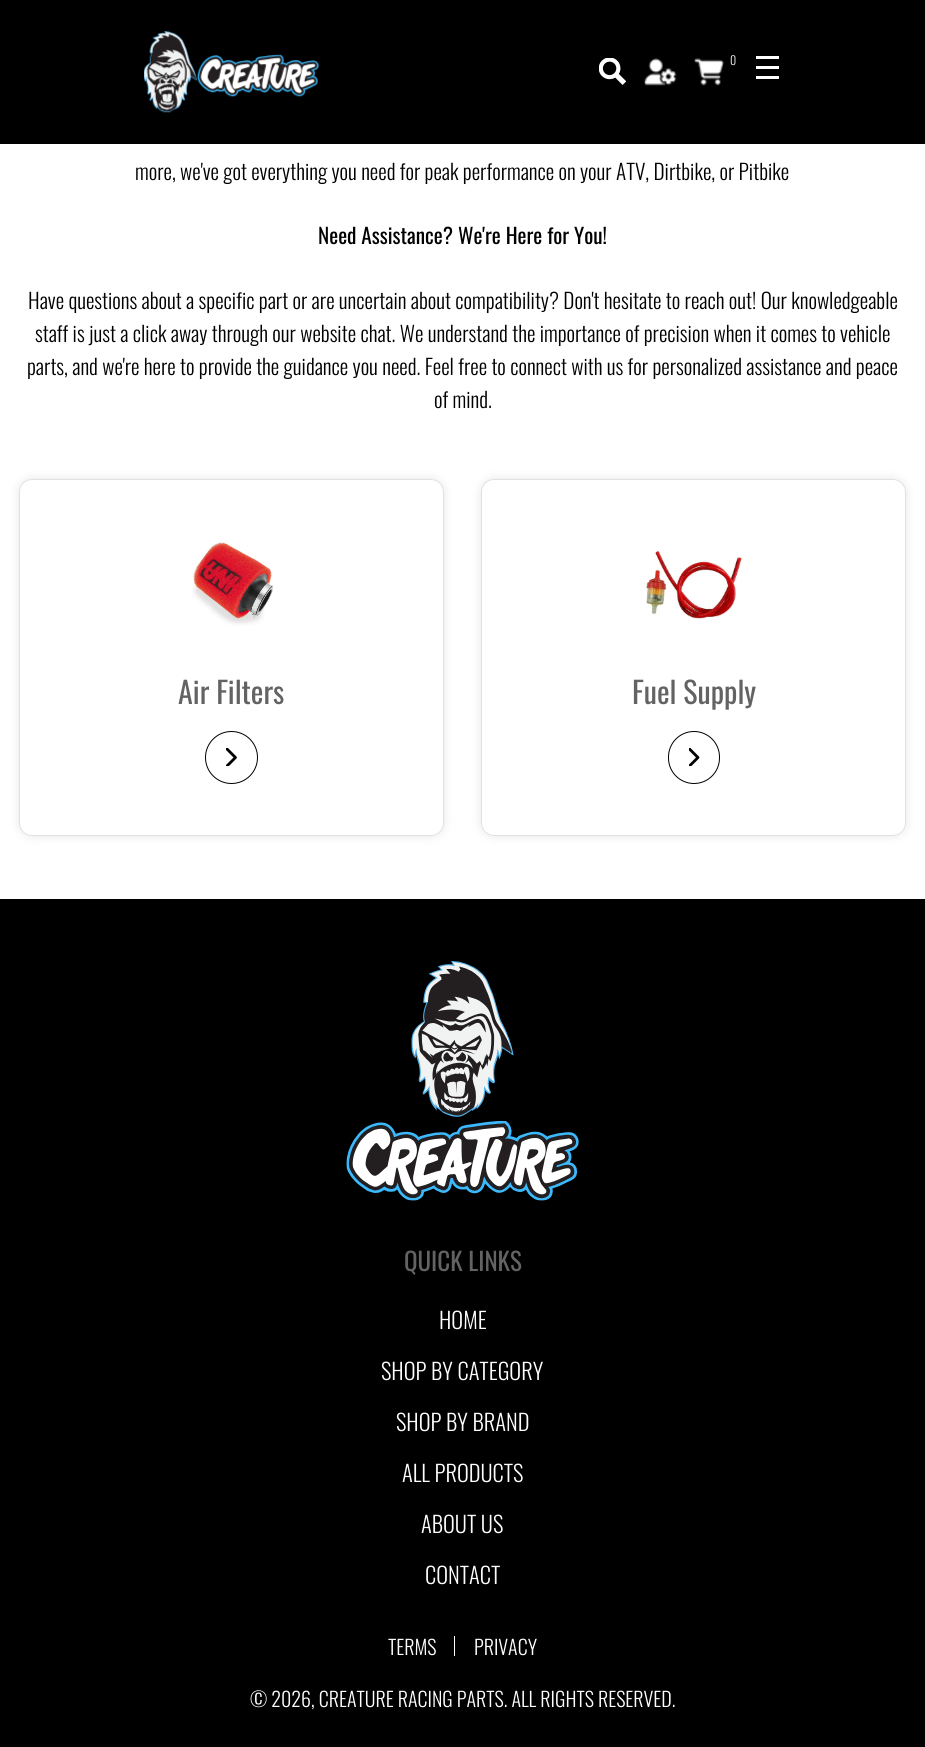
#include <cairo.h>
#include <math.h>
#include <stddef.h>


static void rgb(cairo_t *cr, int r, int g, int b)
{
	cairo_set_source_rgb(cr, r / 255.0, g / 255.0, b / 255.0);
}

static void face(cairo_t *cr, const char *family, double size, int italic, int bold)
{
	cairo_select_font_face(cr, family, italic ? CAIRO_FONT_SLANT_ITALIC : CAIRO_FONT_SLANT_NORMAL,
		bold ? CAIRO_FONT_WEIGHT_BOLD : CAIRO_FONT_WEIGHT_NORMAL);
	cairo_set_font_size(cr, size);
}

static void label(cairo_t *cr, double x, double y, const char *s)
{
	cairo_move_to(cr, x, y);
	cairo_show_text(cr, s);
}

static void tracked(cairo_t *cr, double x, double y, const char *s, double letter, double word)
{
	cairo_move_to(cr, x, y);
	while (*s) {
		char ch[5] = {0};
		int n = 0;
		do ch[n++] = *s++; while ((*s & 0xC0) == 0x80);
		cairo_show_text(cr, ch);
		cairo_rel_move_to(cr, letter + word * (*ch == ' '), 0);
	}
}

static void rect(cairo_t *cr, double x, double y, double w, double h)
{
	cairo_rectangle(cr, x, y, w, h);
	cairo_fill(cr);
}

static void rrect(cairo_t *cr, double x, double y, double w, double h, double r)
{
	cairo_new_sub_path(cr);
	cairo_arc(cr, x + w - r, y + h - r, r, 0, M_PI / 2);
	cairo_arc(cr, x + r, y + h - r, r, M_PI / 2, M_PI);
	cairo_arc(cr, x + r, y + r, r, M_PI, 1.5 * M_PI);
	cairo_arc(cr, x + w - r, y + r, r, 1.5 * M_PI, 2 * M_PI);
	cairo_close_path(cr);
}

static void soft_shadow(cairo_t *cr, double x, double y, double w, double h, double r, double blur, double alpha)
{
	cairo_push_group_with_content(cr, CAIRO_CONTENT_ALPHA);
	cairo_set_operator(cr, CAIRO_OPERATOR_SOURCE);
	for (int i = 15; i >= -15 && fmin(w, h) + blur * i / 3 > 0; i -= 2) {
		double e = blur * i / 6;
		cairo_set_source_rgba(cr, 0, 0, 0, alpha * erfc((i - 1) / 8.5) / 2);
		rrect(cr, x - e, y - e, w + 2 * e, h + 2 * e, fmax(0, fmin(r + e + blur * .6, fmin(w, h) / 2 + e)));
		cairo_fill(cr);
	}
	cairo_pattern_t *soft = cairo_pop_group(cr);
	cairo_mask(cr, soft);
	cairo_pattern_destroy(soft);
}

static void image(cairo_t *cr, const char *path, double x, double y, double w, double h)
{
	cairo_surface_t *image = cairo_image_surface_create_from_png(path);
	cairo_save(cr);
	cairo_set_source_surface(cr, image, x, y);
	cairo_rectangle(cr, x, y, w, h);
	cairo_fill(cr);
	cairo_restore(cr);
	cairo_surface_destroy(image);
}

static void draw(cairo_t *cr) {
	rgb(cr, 0, 0, 0);
	cairo_paint(cr);
	image(cr, "image0.png", 144, 31, 175, 82);
	image(cr, "image1.png", 599, 58, 27, 27);
	image(cr, "image2.png", 644, 58, 33, 28);
	image(cr, "image3.png", 694, 58, 30, 28);
	face(cr, "Oswald Light", 12, 0, 0);
	rgb(cr, 255, 255, 255);
	tracked(cr, 730, 65, "0", 2, 0);
	rect(cr, 756, 56, 23, 3);
	rect(cr, 756, 66, 23, 3);
	rect(cr, 756, 76, 23, 3);
	rect(cr, 0, 144, 925, 755);
	face(cr, "Oswald Light", 21.25, 0, 0);
	rgb(cr, 0, 0, 0);
	label(cr, 135, 180, "more, we've got everything you need for peak performance on your ATV, Dirtbike, or Pitbike");
	face(cr, "Oswald", 21.25, 0, 0);
	label(cr, 318, 244, "Need Assistance? We're Here for You!");
	face(cr, "Oswald Light", 21.25, 0, 0);
	label(cr, 28, 309, "Have questions about a specific part or are uncertain about compatibility? Don't hesitate to reach out! Our knowledgeable");
	label(cr, 35, 342, "staff is just a click away through our website chat. We understand the importance of precision when it comes to vehicle");
	label(cr, 27, 375, "parts, and we're here to provide the guidance you need. Feel free to connect with us for personalized assistance and peace");
	label(cr, 434, 408, "of mind.");
	cairo_save(cr);
	cairo_set_fill_rule(cr, CAIRO_FILL_RULE_EVEN_ODD);
	cairo_new_path(cr);
	cairo_move_to(cr, 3, 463);
	cairo_line_to(cr, 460, 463);
	cairo_line_to(cr, 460, 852);
	cairo_line_to(cr, 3, 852);
	cairo_close_path(cr);
	cairo_move_to(cr, 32, 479);
	cairo_line_to(cr, 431, 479);
	cairo_curve_to(cr, 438, 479, 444, 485, 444, 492);
	cairo_line_to(cr, 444, 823);
	cairo_curve_to(cr, 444, 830, 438, 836, 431, 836);
	cairo_line_to(cr, 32, 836);
	cairo_curve_to(cr, 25, 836, 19, 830, 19, 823);
	cairo_line_to(cr, 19, 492);
	cairo_curve_to(cr, 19, 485, 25, 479, 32, 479);
	cairo_close_path(cr);
	cairo_clip(cr);
	rgb(cr, 0, 0, 0);
	soft_shadow(cr, 19, 479, 425, 357, 13, 5, 0.1);
	cairo_restore(cr);
	rrect(cr, 19.5, 479.5, 424, 356, 12.5);
	rgb(cr, 225, 225, 225);
	cairo_set_line_width(cr, 1);
	cairo_stroke(cr);
	image(cr, "image4.png", 192, 542, 82, 84);
	face(cr, "Oswald", 30, 0, 0);
	rgb(cr, 99, 99, 99);
	label(cr, 178, 704, "Air Filters");
	cairo_new_path(cr);
	cairo_arc(cr, 231.5, 757.5, 26, 0, 2 * M_PI);
	rgb(cr, 0, 0, 0);
	cairo_stroke(cr);
	image(cr, "image5.png", 226, 748, 11, 18);
	cairo_save(cr);
	cairo_set_fill_rule(cr, CAIRO_FILL_RULE_EVEN_ODD);
	cairo_new_path(cr);
	cairo_move_to(cr, 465, 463);
	cairo_line_to(cr, 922, 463);
	cairo_line_to(cr, 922, 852);
	cairo_line_to(cr, 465, 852);
	cairo_close_path(cr);
	cairo_move_to(cr, 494, 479);
	cairo_line_to(cr, 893, 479);
	cairo_curve_to(cr, 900, 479, 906, 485, 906, 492);
	cairo_line_to(cr, 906, 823);
	cairo_curve_to(cr, 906, 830, 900, 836, 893, 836);
	cairo_line_to(cr, 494, 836);
	cairo_curve_to(cr, 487, 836, 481, 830, 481, 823);
	cairo_line_to(cr, 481, 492);
	cairo_curve_to(cr, 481, 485, 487, 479, 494, 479);
	cairo_close_path(cr);
	cairo_clip(cr);
	rgb(cr, 0, 0, 0);
	soft_shadow(cr, 481, 479, 425, 357, 13, 5, 0.1);
	cairo_restore(cr);
	rrect(cr, 481.5, 479.5, 424, 356, 12.5);
	rgb(cr, 225, 225, 225);
	cairo_stroke(cr);
	image(cr, "image6.png", 645, 551, 97, 68);
	rgb(cr, 99, 99, 99);
	label(cr, 632, 704, "Fuel Supply");
	rrect(cr, 668.5, 731.5, 51, 52, 25.5);
	rgb(cr, 0, 0, 0);
	cairo_stroke(cr);
	image(cr, "image7.png", 689, 748, 11, 18);
	image(cr, "image8.png", 346, 961, 233, 240);
	face(cr, "Oswald", 25, 0, 0);
	rgb(cr, 99, 99, 99);
	label(cr, 404, 1271, "QUICK LINKS");
	face(cr, "Oswald Light", 22.5, 0, 0);
	rgb(cr, 255, 255, 255);
	label(cr, 439, 1329, "HOME");
	label(cr, 381, 1380, "SHOP BY CATEGORY");
	label(cr, 396, 1431, "SHOP BY BRAND");
	label(cr, 402, 1482, "ALL PRODUCTS");
	label(cr, 421, 1533, "ABOUT US");
	label(cr, 425, 1584, "CONTACT");
	face(cr, "Oswald Light", 20, 0, 0);
	label(cr, 388, 1655, "TERMS");
	rect(cr, 454, 1636, 1, 20);
	label(cr, 474, 1655, "PRIVACY");
	label(cr, 250, 1707, "© 2026, CREATURE RACING PARTS. ALL RIGHTS RESERVED.");
}

int main(void) {
	cairo_surface_t *surface = cairo_image_surface_create(CAIRO_FORMAT_RGB24, 925, 1747);
	cairo_t *cr = cairo_create(surface);
	cairo_font_options_t *options = cairo_font_options_create();
	cairo_font_options_set_hint_metrics(options, CAIRO_HINT_METRICS_OFF);
	cairo_font_options_set_hint_style(options, CAIRO_HINT_STYLE_NONE);
	cairo_set_font_options(cr, options);
	cairo_set_miter_limit(cr, 4);
	draw(cr);
	cairo_surface_write_to_png(surface, "render.png");
	cairo_font_options_destroy(options);
	cairo_destroy(cr);
	cairo_surface_destroy(surface);
	return 0;
}
